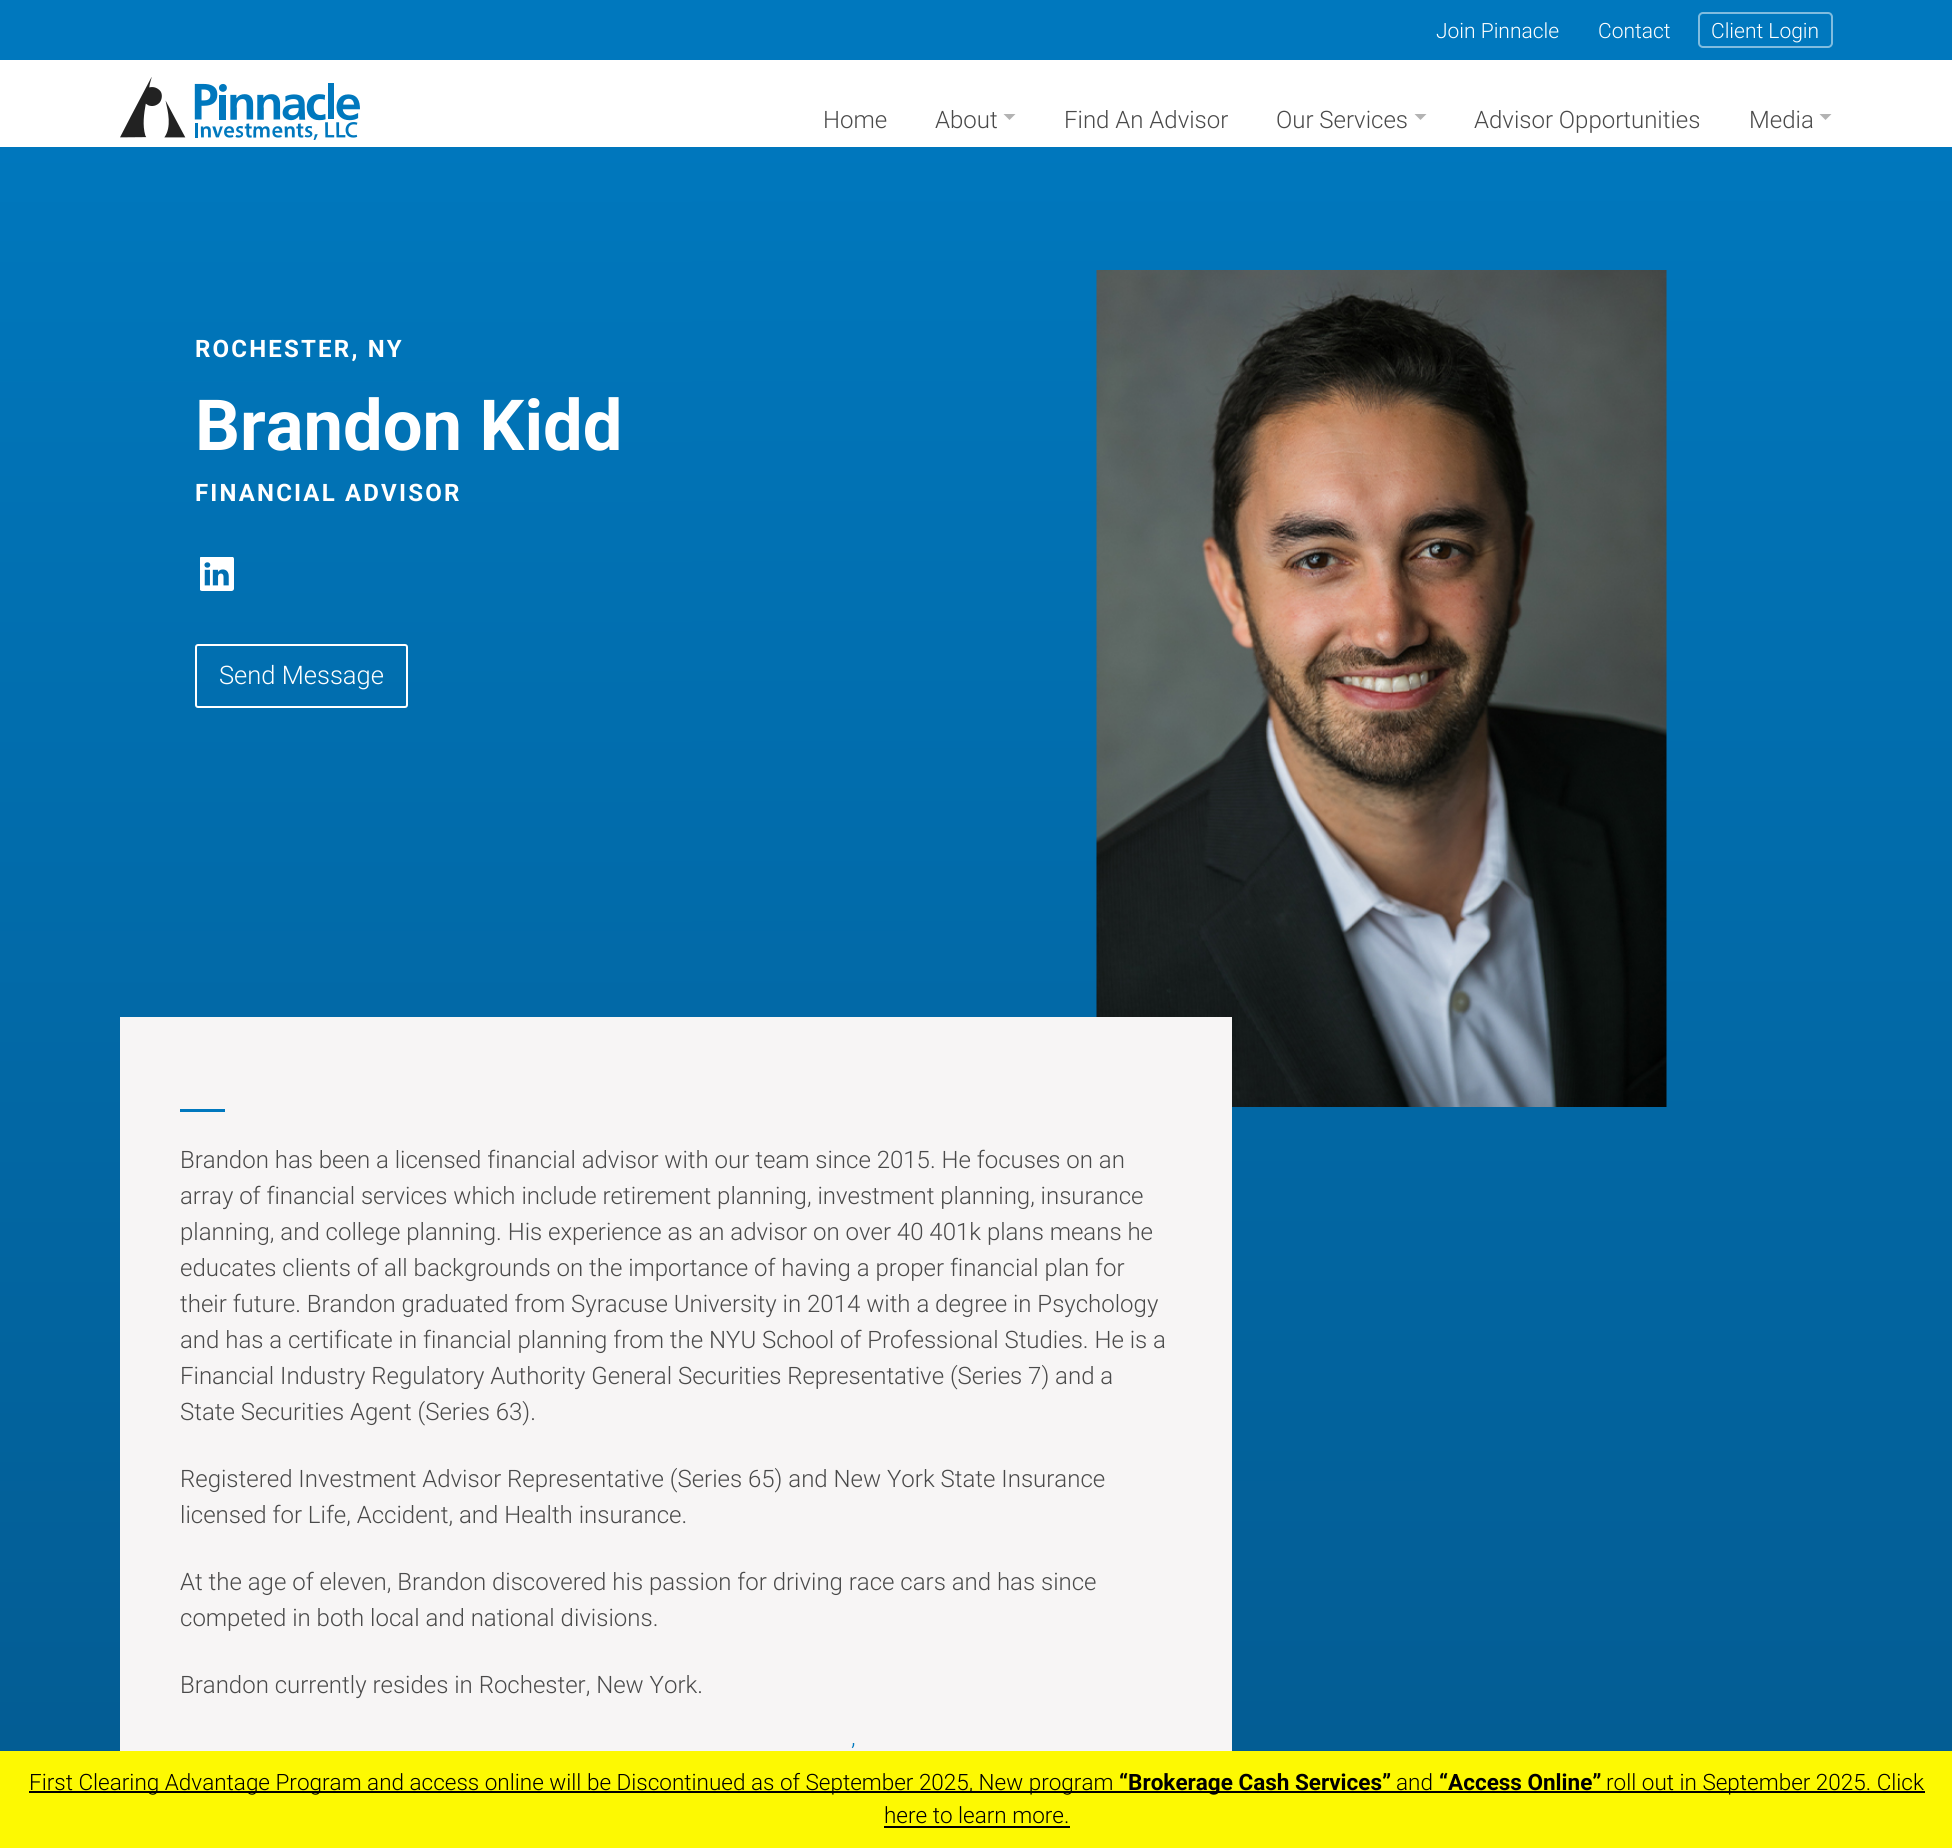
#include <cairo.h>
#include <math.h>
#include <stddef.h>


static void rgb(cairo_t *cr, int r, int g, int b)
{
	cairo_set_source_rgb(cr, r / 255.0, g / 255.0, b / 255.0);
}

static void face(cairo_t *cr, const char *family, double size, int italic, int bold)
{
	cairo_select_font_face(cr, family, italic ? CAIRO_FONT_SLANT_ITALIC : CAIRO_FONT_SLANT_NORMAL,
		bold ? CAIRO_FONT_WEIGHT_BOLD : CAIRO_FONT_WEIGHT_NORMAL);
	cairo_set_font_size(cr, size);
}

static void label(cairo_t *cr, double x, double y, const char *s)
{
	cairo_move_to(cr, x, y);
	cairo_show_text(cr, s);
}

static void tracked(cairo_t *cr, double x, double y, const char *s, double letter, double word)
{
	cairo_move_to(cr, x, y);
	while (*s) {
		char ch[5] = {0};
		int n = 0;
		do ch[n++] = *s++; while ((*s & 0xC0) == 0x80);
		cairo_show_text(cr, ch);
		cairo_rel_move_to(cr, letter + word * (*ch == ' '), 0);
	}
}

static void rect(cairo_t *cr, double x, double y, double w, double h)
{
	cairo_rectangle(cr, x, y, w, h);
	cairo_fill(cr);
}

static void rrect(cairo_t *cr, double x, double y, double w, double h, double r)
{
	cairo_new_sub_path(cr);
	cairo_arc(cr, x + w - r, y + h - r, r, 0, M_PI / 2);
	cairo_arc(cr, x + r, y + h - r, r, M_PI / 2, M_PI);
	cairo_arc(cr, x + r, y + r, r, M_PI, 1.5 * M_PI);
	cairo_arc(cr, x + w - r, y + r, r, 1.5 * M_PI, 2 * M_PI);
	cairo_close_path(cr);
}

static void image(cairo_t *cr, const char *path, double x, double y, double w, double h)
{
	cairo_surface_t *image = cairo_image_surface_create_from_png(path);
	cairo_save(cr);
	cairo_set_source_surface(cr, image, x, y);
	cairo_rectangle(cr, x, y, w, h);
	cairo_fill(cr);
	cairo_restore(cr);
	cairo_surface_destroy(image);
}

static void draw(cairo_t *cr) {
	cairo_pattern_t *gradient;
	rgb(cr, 255, 255, 255);
	cairo_paint(cr);
	rgb(cr, 0, 120, 190);
	rect(cr, 0, 0, 1952, 60);
	face(cr, "Roboto Light", 21, 0, 0);
	rgb(cr, 255, 255, 255);
	label(cr, 1436, 38, "Join Pinnacle");
	label(cr, 1598, 38, "Contact");
	rrect(cr, 1699, 13, 133, 34, 4);
	rgb(cr, 128, 188, 223);
	cairo_stroke(cr);
	rgb(cr, 255, 255, 255);
	label(cr, 1711, 38, "Client Login");
	image(cr, "image0.png", 120, 77, 240, 63);
	face(cr, "Roboto Light", 24, 0, 0);
	rgb(cr, 74, 74, 74);
	label(cr, 823, 128, "Home");
	label(cr, 935, 128, "About");
	rgb(cr, 179, 179, 179);
	cairo_new_path(cr);
	cairo_move_to(cr, 1003.5, 114);
	cairo_line_to(cr, 1015.5, 114);
	cairo_line_to(cr, 1009.5, 120);
	cairo_close_path(cr);
	cairo_fill(cr);
	rgb(cr, 74, 74, 74);
	label(cr, 1064, 128, "Find An Advisor");
	label(cr, 1276, 128, "Our Services");
	rgb(cr, 179, 179, 179);
	cairo_new_path(cr);
	cairo_move_to(cr, 1414.5, 114);
	cairo_line_to(cr, 1426.5, 114);
	cairo_line_to(cr, 1420.5, 120);
	cairo_close_path(cr);
	cairo_fill(cr);
	rgb(cr, 74, 74, 74);
	label(cr, 1474, 128, "Advisor Opportunities");
	label(cr, 1749, 128, "Media");
	rgb(cr, 179, 179, 179);
	cairo_new_path(cr);
	cairo_move_to(cr, 1819.5, 114);
	cairo_line_to(cr, 1831.5, 114);
	cairo_line_to(cr, 1825.5, 120);
	cairo_close_path(cr);
	cairo_fill(cr);
	rgb(cr, 253, 249, 2);
	rect(cr, 0, 1751, 1952, 97);
	rgb(cr, 0, 0, 0);
	rect(cr, 29, 1791, 1896, 2);
	face(cr, "Roboto Light", 22.5, 0, 0);
	label(cr, 29, 1790, "First Clearing Advantage Program and access online will be Discontinued as of September 2025, New program");
	face(cr, "Roboto", 22.5, 0, 1);
	label(cr, 1119, 1790, "“Brokerage Cash Services”");
	face(cr, "Roboto Light", 22.5, 0, 0);
	label(cr, 1396, 1790, "and");
	face(cr, "Roboto", 22.5, 0, 1);
	label(cr, 1439, 1790, "“Access Online”");
	face(cr, "Roboto Light", 22.5, 0, 0);
	label(cr, 1606, 1790, "roll out in September 2025. Click");
	label(cr, 884, 1823, "here to learn more.");
	rect(cr, 884, 1826, 186, 2);
	gradient = cairo_pattern_create_linear(976, 105, 977, 1788);
	cairo_pattern_add_color_stop_rgba(gradient, 0, 0, 0.471, 0.745, 1);
	cairo_pattern_add_color_stop_rgba(gradient, 1, 0.012, 0.361, 0.576, 1);
	cairo_set_source(cr, gradient);
	cairo_pattern_destroy(gradient);
	rect(cr, 0, 147, 1952, 1604);
	face(cr, "Roboto", 24, 0, 1);
	rgb(cr, 255, 255, 255);
	tracked(cr, 195, 357, "ROCHESTER, NY", 2.2, 0);
	face(cr, "Roboto", 70.5, 0, 1);
	label(cr, 195, 450, "Brandon Kidd");
	face(cr, "Roboto", 24, 0, 1);
	tracked(cr, 195, 501, "FINANCIAL ADVISOR", 2.2, 0);
	image(cr, "image1.png", 200, 557, 34, 34);
	rrect(cr, 196, 645, 211, 62, 2);
	cairo_stroke(cr);
	face(cr, "Roboto Light", 25.5, 0, 0);
	label(cr, 219, 684, "Send Message");
	image(cr, "image2.png", 1096, 270, 571, 837);
	rgb(cr, 247, 245, 245);
	rect(cr, 120, 1017, 1112, 734);
	rgb(cr, 0, 120, 190);
	rect(cr, 180, 1109, 45, 3);
	face(cr, "Roboto Light", 24, 0, 0);
	rgb(cr, 74, 74, 74);
	label(cr, 180, 1168, "Brandon has been a licensed financial advisor with our team since 2015. He focuses on an");
	label(cr, 180, 1204, "array of financial services which include retirement planning, investment planning, insurance");
	label(cr, 180, 1240, "planning, and college planning. His experience as an advisor on over 40 401k plans means he");
	label(cr, 180, 1276, "educates clients of all backgrounds on the importance of having a proper financial plan for");
	label(cr, 180, 1312, "their future. Brandon graduated from Syracuse University in 2014 with a degree in Psychology");
	label(cr, 180, 1348, "and has a certificate in financial planning from the NYU School of Professional Studies. He is a");
	label(cr, 180, 1384, "Financial Industry Regulatory Authority General Securities Representative (Series 7) and a");
	label(cr, 180, 1420, "State Securities Agent (Series 63).");
	label(cr, 180, 1487, "Registered Investment Advisor Representative (Series 65) and New York State Insurance");
	label(cr, 180, 1523, "licensed for Life, Accident, and Health insurance.");
	label(cr, 180, 1590, "At the age of eleven, Brandon discovered his passion for driving race cars and has since");
	label(cr, 180, 1626, "competed in both local and national divisions.");
	label(cr, 180, 1693, "Brandon currently resides in Rochester, New York.");
	rgb(cr, 0, 120, 190);
	label(cr, 851, 1761, "’");
}

int main(void) {
	cairo_surface_t *surface = cairo_image_surface_create(CAIRO_FORMAT_RGB24, 1952, 1848);
	cairo_t *cr = cairo_create(surface);
	cairo_font_options_t *options = cairo_font_options_create();
	cairo_font_options_set_hint_metrics(options, CAIRO_HINT_METRICS_OFF);
	cairo_font_options_set_hint_style(options, CAIRO_HINT_STYLE_NONE);
	cairo_set_font_options(cr, options);
	cairo_set_miter_limit(cr, 4);
	draw(cr);
	cairo_surface_write_to_png(surface, "render.png");
	cairo_font_options_destroy(options);
	cairo_destroy(cr);
	cairo_surface_destroy(surface);
	return 0;
}
